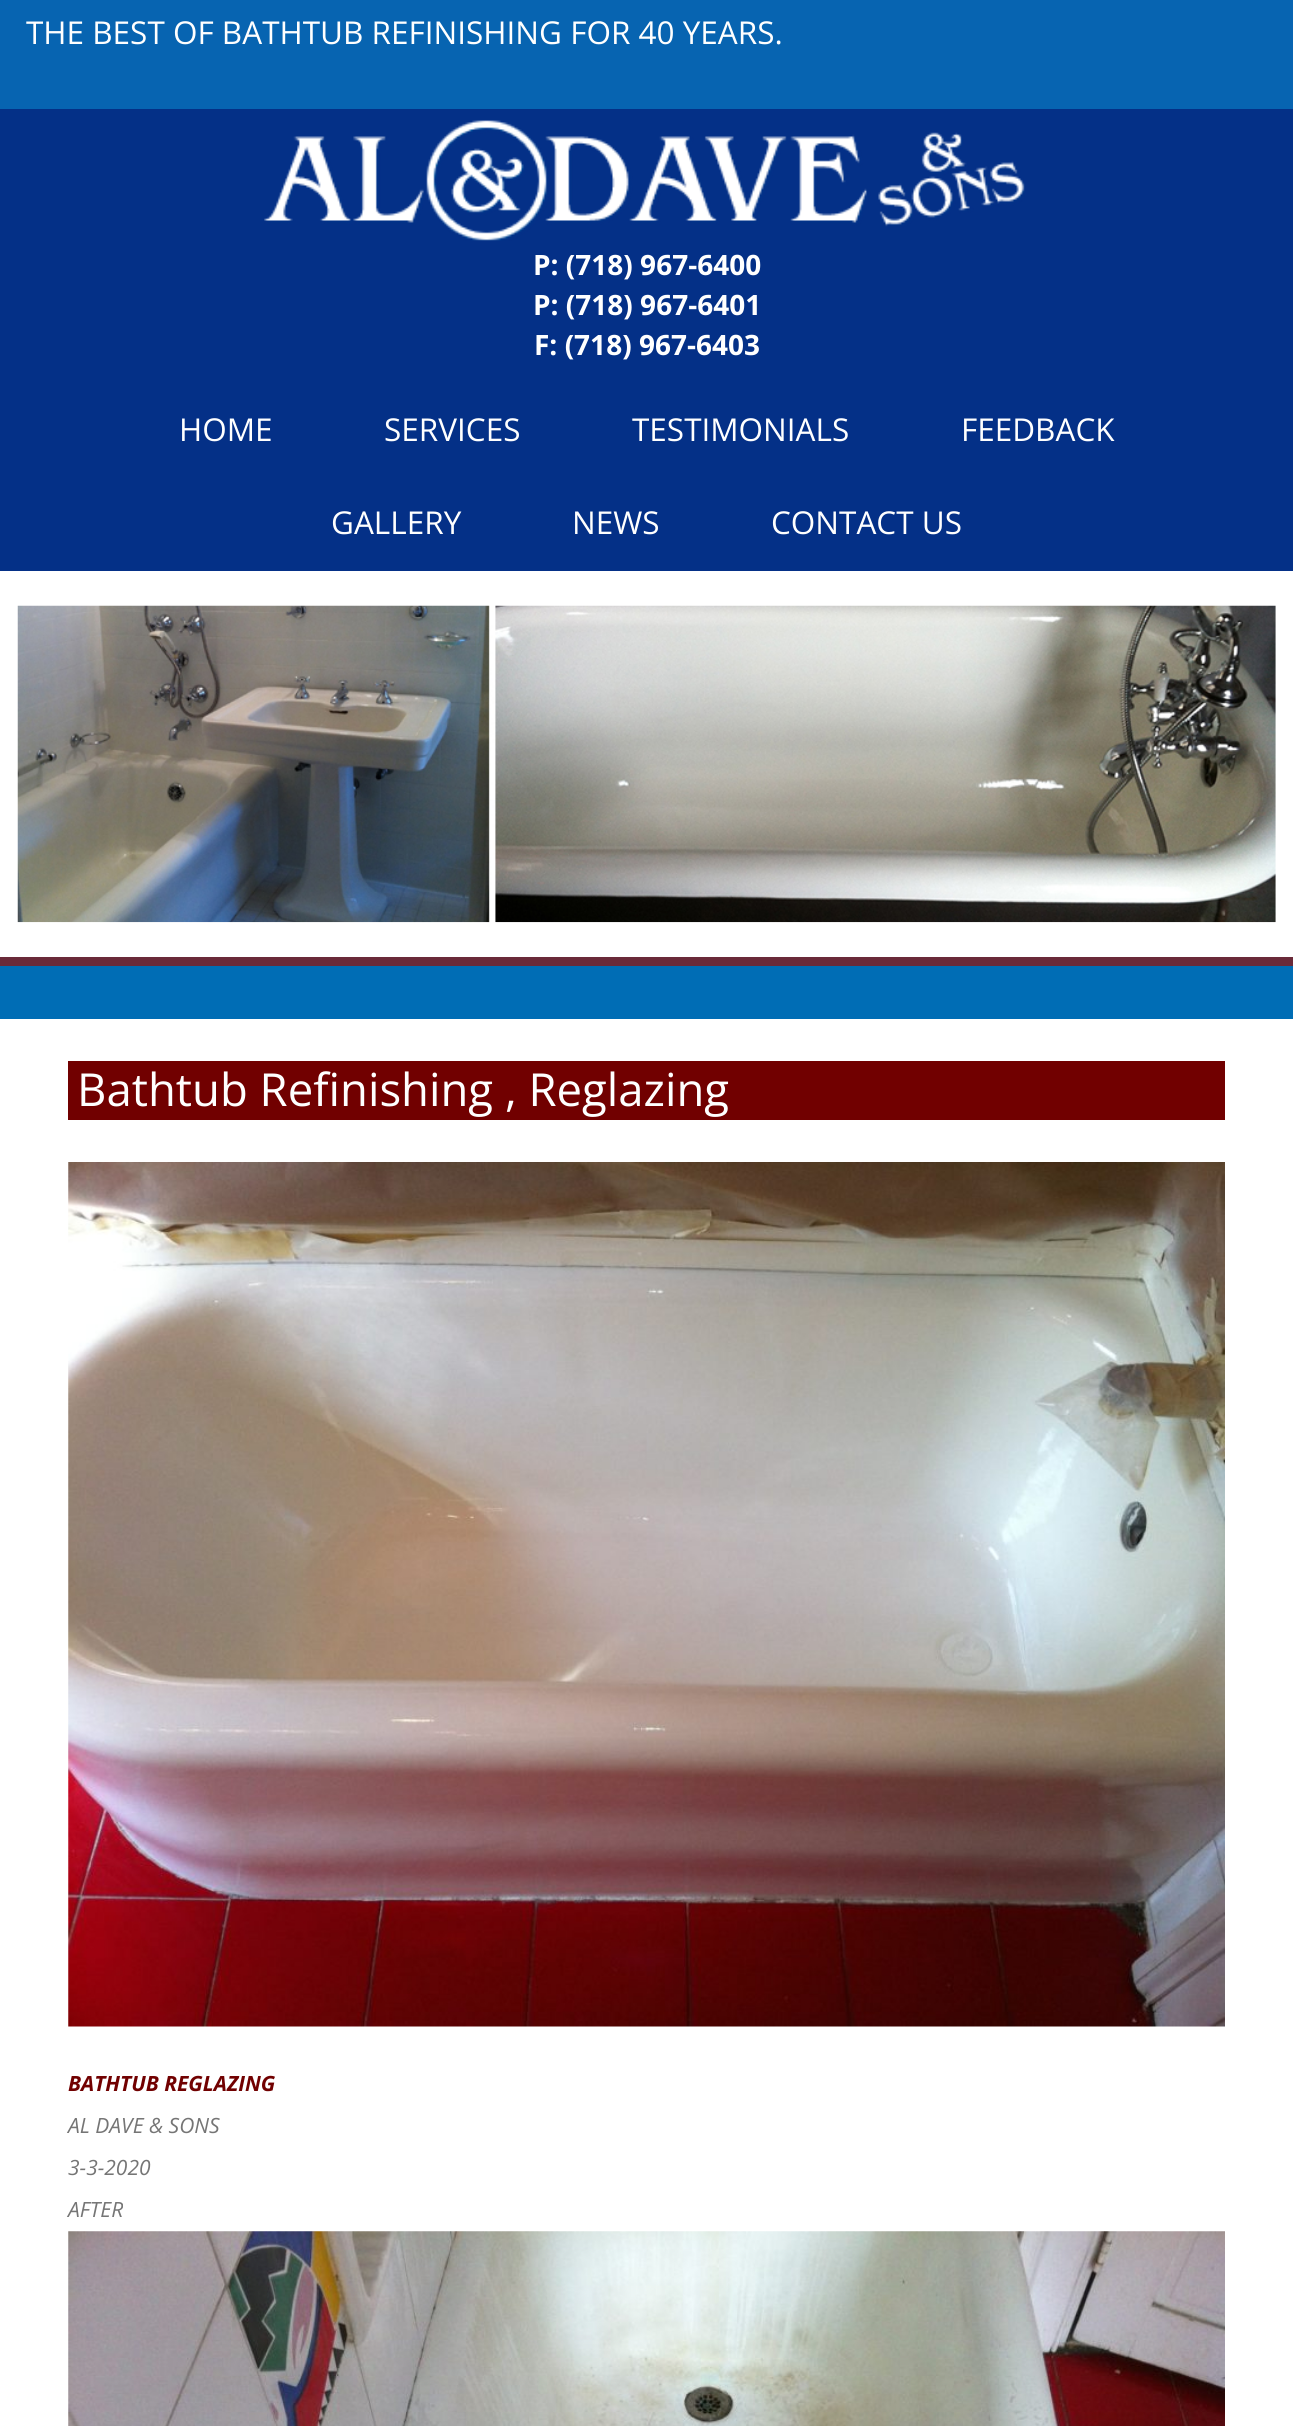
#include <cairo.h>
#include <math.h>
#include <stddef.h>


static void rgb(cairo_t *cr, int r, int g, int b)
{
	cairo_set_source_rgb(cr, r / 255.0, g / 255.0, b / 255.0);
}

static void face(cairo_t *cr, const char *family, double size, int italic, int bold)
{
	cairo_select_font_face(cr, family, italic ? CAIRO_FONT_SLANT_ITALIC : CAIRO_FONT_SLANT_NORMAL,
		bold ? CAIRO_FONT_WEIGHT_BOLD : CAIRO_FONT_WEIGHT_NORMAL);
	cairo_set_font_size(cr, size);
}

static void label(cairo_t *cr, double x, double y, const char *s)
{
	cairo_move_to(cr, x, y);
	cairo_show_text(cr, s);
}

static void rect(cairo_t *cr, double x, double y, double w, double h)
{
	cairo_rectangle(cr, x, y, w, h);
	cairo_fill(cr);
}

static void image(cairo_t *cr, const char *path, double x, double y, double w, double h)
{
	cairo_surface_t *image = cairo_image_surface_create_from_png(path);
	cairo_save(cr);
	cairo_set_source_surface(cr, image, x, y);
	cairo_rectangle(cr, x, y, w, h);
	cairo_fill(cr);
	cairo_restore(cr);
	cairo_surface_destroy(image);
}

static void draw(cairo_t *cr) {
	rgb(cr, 255, 255, 255);
	cairo_paint(cr);
	rgb(cr, 4, 48, 135);
	rect(cr, 0, 109, 1293, 462);
	rgb(cr, 7, 100, 177);
	rect(cr, 0, 0, 1293, 109);
	face(cr, "Open Sans", 31.5, 0, 0);
	rgb(cr, 255, 255, 255);
	label(cr, 26, 44, "THE BEST OF BATHTUB REFINISHING FOR 40 YEARS.");
	image(cr, "image0.png", 264, 120, 761, 121);
	face(cr, "Open Sans", 28, 0, 1);
	label(cr, 533, 275, "P: (718) 967-6400");
	label(cr, 533, 315, "P: (718) 967-6401");
	label(cr, 534, 355, "F: (718) 967-6403");
	face(cr, "Open Sans", 31.5, 0, 0);
	label(cr, 179, 441, "HOME");
	label(cr, 384, 441, "SERVICES");
	label(cr, 632, 441, "TESTIMONIALS");
	label(cr, 961, 441, "FEEDBACK");
	label(cr, 331, 534, "GALLERY");
	label(cr, 572, 534, "NEWS");
	label(cr, 771, 534, "CONTACT US");
	image(cr, "image1.png", 17, 605, 1259, 318);
	rgb(cr, 0, 109, 181);
	rect(cr, 0, 966, 1293, 53);
	rgb(cr, 106, 42, 57);
	rect(cr, 0, 957, 1293, 9);
	rgb(cr, 113, 0, 0);
	rect(cr, 68, 1061, 1157, 59);
	face(cr, "Open Sans", 45.5, 0, 0);
	rgb(cr, 255, 255, 255);
	label(cr, 77, 1106, "Bathtub Refinishing , Reglazing");
	image(cr, "image2.png", 68, 1162, 1157, 865);
	face(cr, "Open Sans", 21, 1, 1);
	rgb(cr, 113, 0, 0);
	label(cr, 68, 2091, "BATHTUB REGLAZING");
	face(cr, "Open Sans", 21, 1, 0);
	rgb(cr, 117, 117, 117);
	label(cr, 68, 2133, "AL DAVE & SONS");
	label(cr, 68, 2175, "3-3-2020");
	label(cr, 68, 2217, "AFTER");
	image(cr, "image3.png", 68, 2231, 1157, 195);
}

int main(void) {
	cairo_surface_t *surface = cairo_image_surface_create(CAIRO_FORMAT_RGB24, 1293, 2426);
	cairo_t *cr = cairo_create(surface);
	cairo_font_options_t *options = cairo_font_options_create();
	cairo_font_options_set_hint_metrics(options, CAIRO_HINT_METRICS_OFF);
	cairo_font_options_set_hint_style(options, CAIRO_HINT_STYLE_NONE);
	cairo_set_font_options(cr, options);
	cairo_set_miter_limit(cr, 4);
	draw(cr);
	cairo_surface_write_to_png(surface, "render.png");
	cairo_font_options_destroy(options);
	cairo_destroy(cr);
	cairo_surface_destroy(surface);
	return 0;
}
